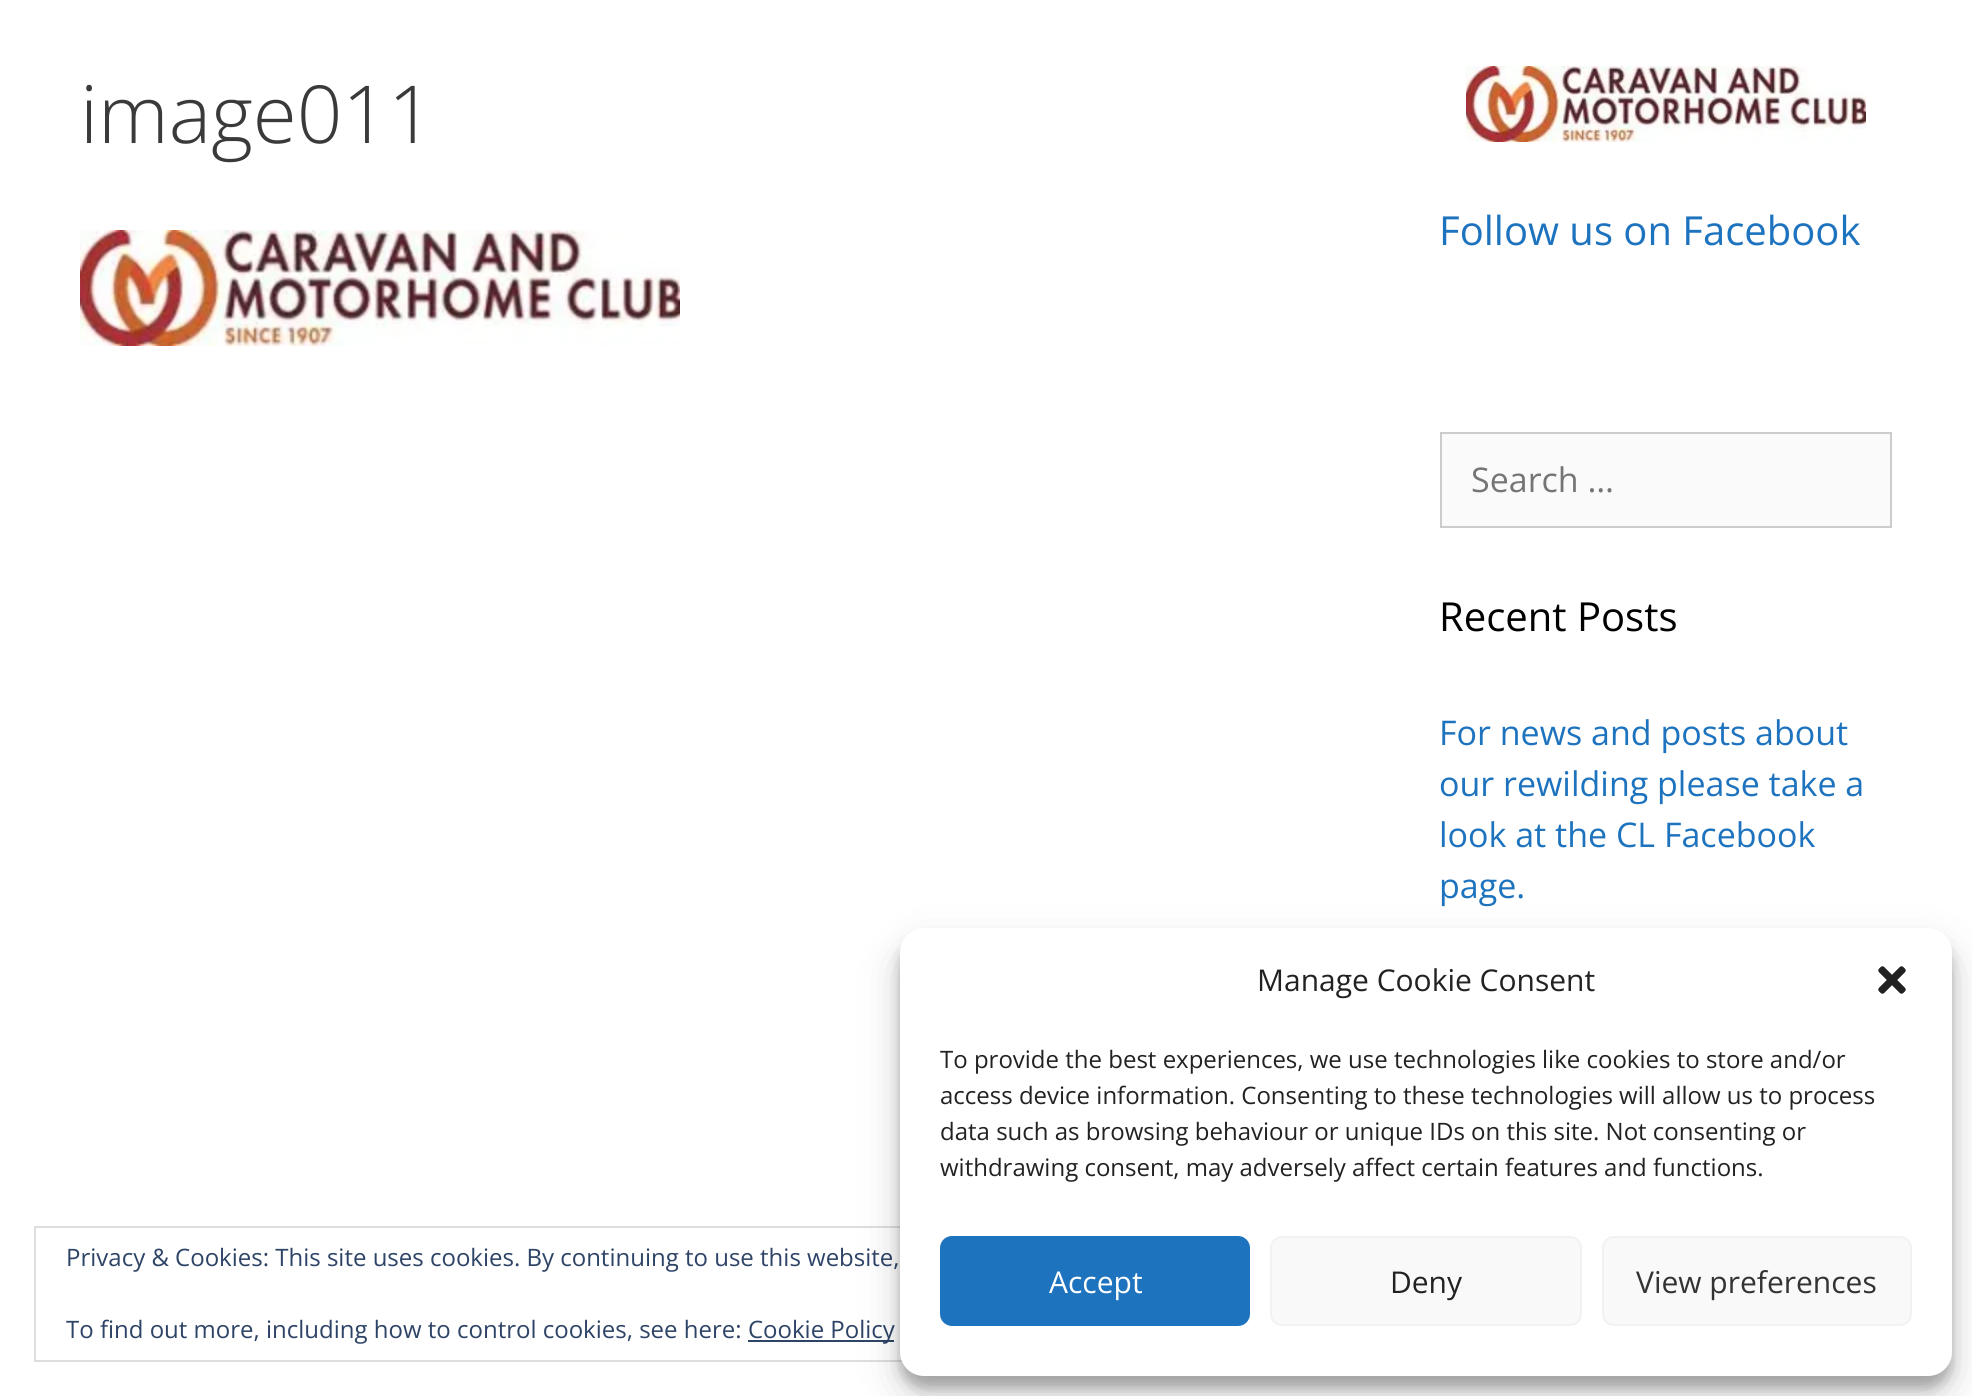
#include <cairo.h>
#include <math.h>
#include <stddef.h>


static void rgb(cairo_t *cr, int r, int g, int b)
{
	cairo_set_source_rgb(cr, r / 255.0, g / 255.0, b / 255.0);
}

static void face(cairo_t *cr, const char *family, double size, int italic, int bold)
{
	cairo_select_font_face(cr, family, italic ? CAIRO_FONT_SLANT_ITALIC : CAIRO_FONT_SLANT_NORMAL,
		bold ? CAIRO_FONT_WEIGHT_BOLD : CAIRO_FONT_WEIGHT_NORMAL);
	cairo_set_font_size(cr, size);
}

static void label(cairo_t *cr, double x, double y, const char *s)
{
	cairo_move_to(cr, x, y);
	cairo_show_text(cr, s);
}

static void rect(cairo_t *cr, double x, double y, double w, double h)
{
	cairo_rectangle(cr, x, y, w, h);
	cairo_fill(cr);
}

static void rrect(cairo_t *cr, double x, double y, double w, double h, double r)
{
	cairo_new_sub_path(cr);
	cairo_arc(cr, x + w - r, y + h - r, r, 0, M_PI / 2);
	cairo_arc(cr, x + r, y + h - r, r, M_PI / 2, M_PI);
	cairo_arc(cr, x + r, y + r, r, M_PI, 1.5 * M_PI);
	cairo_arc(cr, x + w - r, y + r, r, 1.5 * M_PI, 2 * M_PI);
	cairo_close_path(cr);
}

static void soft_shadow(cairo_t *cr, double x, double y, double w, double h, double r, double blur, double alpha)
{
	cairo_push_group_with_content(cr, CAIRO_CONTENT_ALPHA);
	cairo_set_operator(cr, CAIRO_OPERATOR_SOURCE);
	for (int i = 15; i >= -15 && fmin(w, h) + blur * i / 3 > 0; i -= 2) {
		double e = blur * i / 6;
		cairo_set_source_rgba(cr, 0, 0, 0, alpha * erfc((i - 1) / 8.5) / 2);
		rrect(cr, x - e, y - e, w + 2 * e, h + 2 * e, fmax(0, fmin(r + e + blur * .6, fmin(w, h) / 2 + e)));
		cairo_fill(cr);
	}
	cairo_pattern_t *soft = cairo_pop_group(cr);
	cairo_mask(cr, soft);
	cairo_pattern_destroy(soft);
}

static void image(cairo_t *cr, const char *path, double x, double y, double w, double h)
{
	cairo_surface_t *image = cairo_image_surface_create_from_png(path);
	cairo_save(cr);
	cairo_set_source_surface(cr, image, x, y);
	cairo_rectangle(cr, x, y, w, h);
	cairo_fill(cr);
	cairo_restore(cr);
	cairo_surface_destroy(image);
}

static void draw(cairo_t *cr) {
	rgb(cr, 255, 255, 255);
	cairo_paint(cr);
	face(cr, "Open Sans Light", 80, 0, 0);
	rgb(cr, 58, 58, 58);
	label(cr, 80, 143, "image011");
	image(cr, "image0.png", 80, 230, 600, 116);
	image(cr, "image1.png", 1466, 66, 400, 76);
	face(cr, "Open Sans", 40, 0, 0);
	rgb(cr, 30, 115, 190);
	label(cr, 1439, 245, "Follow us on Facebook");
	rgb(cr, 250, 250, 250);
	cairo_rectangle(cr, 1441, 433, 450, 94);
	cairo_fill_preserve(cr);
	rgb(cr, 204, 204, 204);
	cairo_stroke(cr);
	face(cr, "Open Sans", 34, 0, 0);
	rgb(cr, 117, 117, 117);
	label(cr, 1471, 492, "Search …");
	face(cr, "Open Sans", 40, 0, 0);
	rgb(cr, 0, 0, 0);
	label(cr, 1439, 631, "Recent Posts");
	face(cr, "Open Sans", 34, 0, 0);
	rgb(cr, 30, 115, 190);
	label(cr, 1439, 745, "For news and posts about");
	label(cr, 1439, 796, "our rewilding please take a");
	label(cr, 1439, 847, "look at the CL Facebook");
	label(cr, 1439, 898, "page.");
	cairo_rectangle(cr, 35, 1227, 1902, 134);
	rgb(cr, 222, 222, 222);
	cairo_stroke(cr);
	face(cr, "Open Sans", 24, 0, 0);
	rgb(cr, 46, 68, 103);
	label(cr, 66, 1266, "Privacy & Cookies: This site uses cookies. By continuing to use this website,");
	label(cr, 66, 1338, "To find out more, including how to control cookies, see here:");
	rect(cr, 748, 1340, 146, 2);
	label(cr, 748, 1338, "Cookie Policy");
	rgb(cr, 0, 0, 0);
	soft_shadow(cr, 900, 940, 1052, 448, 24, 6, 0.23);
	soft_shadow(cr, 900, 948, 1052, 448, 24, 20, 0.19);
	rgb(cr, 255, 255, 255);
	rrect(cr, 900, 928, 1052, 448, 24);
	cairo_fill(cr);
	face(cr, "Open Sans", 30, 0, 0);
	rgb(cr, 34, 34, 34);
	label(cr, 1257, 991, "Manage Cookie Consent");
	image(cr, "image2.png", 1878, 966, 28, 28);
	face(cr, "Open Sans", 24, 0, 0);
	label(cr, 940, 1068, "To provide the best experiences, we use technologies like cookies to store and/or");
	label(cr, 940, 1104, "access device information. Consenting to these technologies will allow us to process");
	label(cr, 940, 1140, "data such as browsing behaviour or unique IDs on this site. Not consenting or");
	label(cr, 940, 1176, "withdrawing consent, may adversely affect certain features and functions.");
	rgb(cr, 30, 115, 190);
	rrect(cr, 941, 1237, 308, 88, 11);
	cairo_fill_preserve(cr);
	cairo_stroke(cr);
	face(cr, "Open Sans", 30, 0, 0);
	rgb(cr, 255, 255, 255);
	label(cr, 1049, 1293, "Accept");
	rgb(cr, 249, 249, 249);
	rrect(cr, 1271, 1237, 310, 88, 11);
	cairo_fill_preserve(cr);
	rgb(cr, 242, 242, 242);
	cairo_stroke(cr);
	rgb(cr, 34, 34, 34);
	label(cr, 1390, 1293, "Deny");
	rgb(cr, 249, 249, 249);
	rrect(cr, 1603, 1237, 308, 88, 11);
	cairo_fill_preserve(cr);
	rgb(cr, 242, 242, 242);
	cairo_stroke(cr);
	rgb(cr, 51, 51, 51);
	label(cr, 1636, 1293, "View preferences");
}

int main(void) {
	cairo_surface_t *surface = cairo_image_surface_create(CAIRO_FORMAT_RGB24, 1972, 1396);
	cairo_t *cr = cairo_create(surface);
	cairo_font_options_t *options = cairo_font_options_create();
	cairo_font_options_set_hint_metrics(options, CAIRO_HINT_METRICS_OFF);
	cairo_font_options_set_hint_style(options, CAIRO_HINT_STYLE_NONE);
	cairo_set_font_options(cr, options);
	cairo_set_miter_limit(cr, 4);
	draw(cr);
	cairo_surface_write_to_png(surface, "render.png");
	cairo_font_options_destroy(options);
	cairo_destroy(cr);
	cairo_surface_destroy(surface);
	return 0;
}
